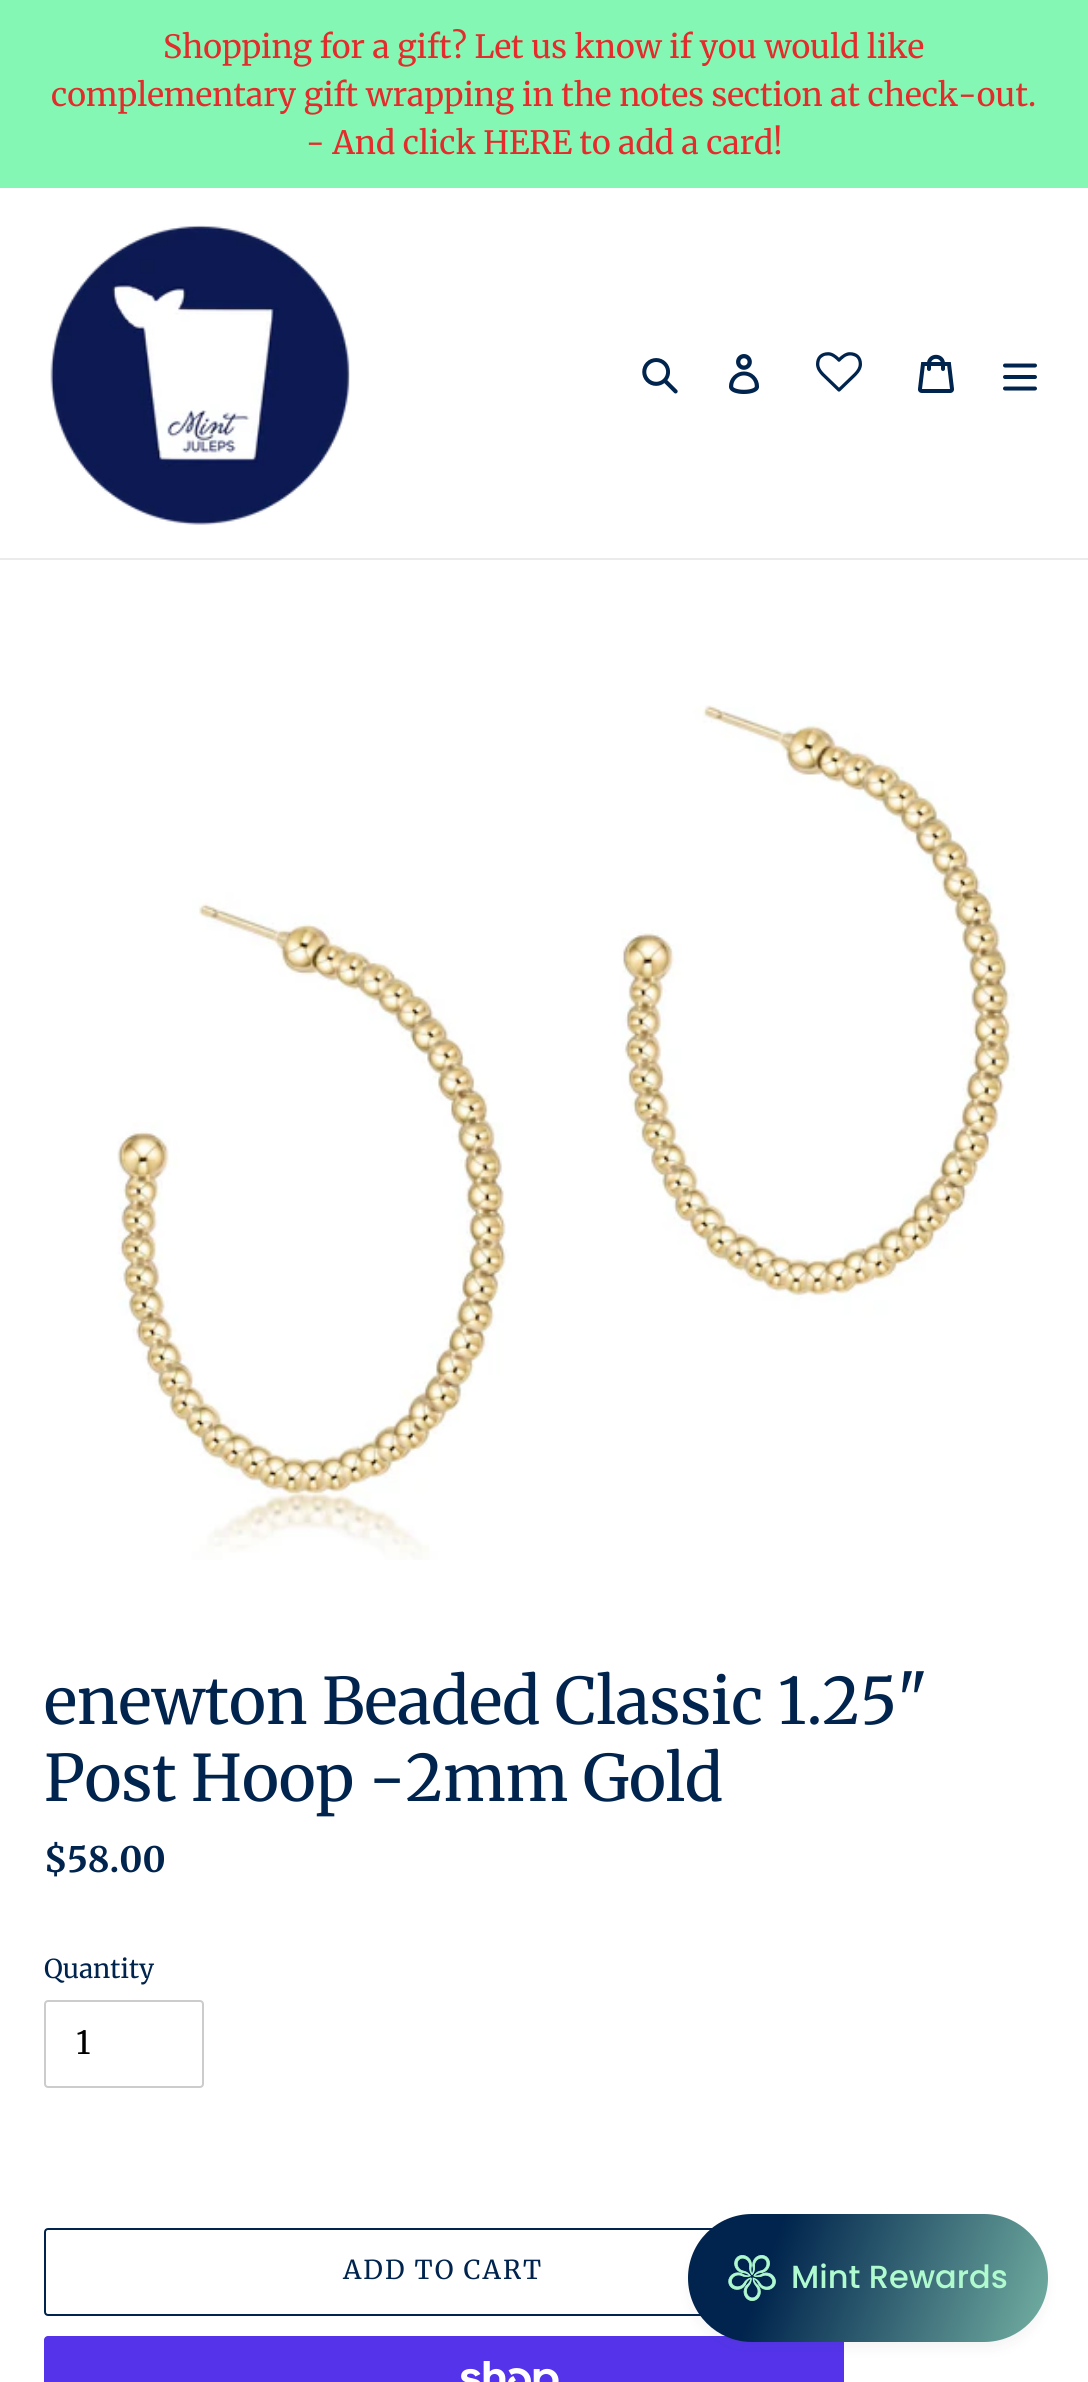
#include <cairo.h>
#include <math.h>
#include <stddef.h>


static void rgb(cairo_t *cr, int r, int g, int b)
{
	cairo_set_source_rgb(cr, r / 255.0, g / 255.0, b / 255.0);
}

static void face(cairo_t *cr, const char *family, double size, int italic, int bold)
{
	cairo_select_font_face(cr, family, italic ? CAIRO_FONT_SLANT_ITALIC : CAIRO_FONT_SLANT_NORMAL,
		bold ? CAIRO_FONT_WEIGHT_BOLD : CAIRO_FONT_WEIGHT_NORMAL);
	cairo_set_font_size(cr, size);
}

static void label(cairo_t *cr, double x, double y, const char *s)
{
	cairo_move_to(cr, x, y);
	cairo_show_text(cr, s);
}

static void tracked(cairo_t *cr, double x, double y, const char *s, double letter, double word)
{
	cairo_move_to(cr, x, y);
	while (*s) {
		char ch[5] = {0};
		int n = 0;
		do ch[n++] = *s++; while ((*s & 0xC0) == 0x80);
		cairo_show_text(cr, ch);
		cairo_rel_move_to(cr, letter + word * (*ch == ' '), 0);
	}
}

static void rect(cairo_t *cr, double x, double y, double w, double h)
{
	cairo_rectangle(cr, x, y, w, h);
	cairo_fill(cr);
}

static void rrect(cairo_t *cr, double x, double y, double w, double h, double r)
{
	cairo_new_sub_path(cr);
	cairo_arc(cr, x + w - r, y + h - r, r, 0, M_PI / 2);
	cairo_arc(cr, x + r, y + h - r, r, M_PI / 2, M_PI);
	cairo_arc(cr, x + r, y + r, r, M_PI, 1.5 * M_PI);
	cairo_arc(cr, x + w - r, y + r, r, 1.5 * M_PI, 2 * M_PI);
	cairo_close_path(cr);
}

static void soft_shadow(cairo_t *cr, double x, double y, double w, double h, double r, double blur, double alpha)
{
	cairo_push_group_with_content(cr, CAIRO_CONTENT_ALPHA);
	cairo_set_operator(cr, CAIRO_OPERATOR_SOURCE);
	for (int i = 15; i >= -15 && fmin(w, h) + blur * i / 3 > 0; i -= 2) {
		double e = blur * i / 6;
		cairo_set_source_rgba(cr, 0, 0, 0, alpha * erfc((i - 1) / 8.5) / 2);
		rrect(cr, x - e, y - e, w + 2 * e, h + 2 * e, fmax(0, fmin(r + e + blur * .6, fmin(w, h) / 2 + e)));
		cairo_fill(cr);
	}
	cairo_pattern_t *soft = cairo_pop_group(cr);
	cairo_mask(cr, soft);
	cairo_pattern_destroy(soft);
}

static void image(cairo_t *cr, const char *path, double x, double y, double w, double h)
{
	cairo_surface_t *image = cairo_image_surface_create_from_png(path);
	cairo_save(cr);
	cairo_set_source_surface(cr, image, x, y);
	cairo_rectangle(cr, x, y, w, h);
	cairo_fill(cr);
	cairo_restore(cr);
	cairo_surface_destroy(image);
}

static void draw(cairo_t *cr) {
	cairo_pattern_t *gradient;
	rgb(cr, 255, 255, 255);
	cairo_paint(cr);
	rgb(cr, 132, 247, 180);
	rect(cr, 0, 0, 1088, 188);
	face(cr, "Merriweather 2", 32, 0, 0);
	rgb(cr, 227, 44, 43);
	label(cr, 163, 58, "Shopping for a gift? Let us know if you would like");
	label(cr, 51, 106, "complementary gift wrapping in the notes section at check-out.");
	label(cr, 306, 154, "- And click HERE to add a card!");
	rgb(cr, 235, 235, 235);
	rect(cr, 0, 558, 1088, 2);
	image(cr, "image0.png", 50, 225, 300, 300);
	image(cr, "image1.png", 642, 358, 36, 36);
	image(cr, "image2.png", 729, 354, 31, 40);
	image(cr, "image3.png", 816, 352, 46, 40);
	image(cr, "image4.png", 918, 354, 36, 39);
	image(cr, "image5.png", 1003, 363, 34, 28);
	image(cr, "image6.png", 117, 705, 898, 855);
	face(cr, "Merriweather", 64, 0, 0);
	rgb(cr, 0, 36, 77);
	label(cr, 44, 1724, "enewton Beaded Classic 1.25\"");
	label(cr, 44, 1801, "Post Hoop -2mm Gold");
	face(cr, "Merriweather", 35, 0, 1);
	label(cr, 44, 1872, "$58.00");
	face(cr, "Merriweather 2", 26, 0, 0);
	label(cr, 44, 1978, "Quantity");
	rrect(cr, 45, 2001, 158, 86, 3);
	rgb(cr, 204, 204, 204);
	cairo_stroke(cr);
	face(cr, "Merriweather 2", 32, 0, 0);
	rgb(cr, 0, 0, 0);
	label(cr, 76, 2054, "1");
	rrect(cr, 45, 2229, 798, 86, 3);
	rgb(cr, 0, 36, 77);
	cairo_stroke(cr);
	face(cr, "Merriweather 2", 26, 0, 0);
	tracked(cr, 343, 2279, "ADD TO CART", 2, 0);
	rgb(cr, 84, 51, 235);
	rrect(cr, 44, 2336, 800, 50, 4);
	cairo_fill(cr);
	image(cr, "image7.png", 461, 2361, 98, 21);
	rgb(cr, 68, 68, 68);
	soft_shadow(cr, 692, 2226, 352, 120, 60, 8, 0.08);
	gradient = cairo_pattern_create_linear(688, 2214, 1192, 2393);
	cairo_pattern_add_color_stop_rgba(gradient, 0.17, 0, 0.141, 0.302, 1);
	cairo_pattern_add_color_stop_rgba(gradient, 1, 0.69, 0.98, 0.812, 1);
	cairo_set_source(cr, gradient);
	cairo_pattern_destroy(gradient);
	rrect(cr, 688, 2214, 360, 128, 64);
	cairo_fill(cr);
	image(cr, "image8.png", 728, 2255, 48, 46);
	face(cr, "Poppins Medium", 32, 0, 0);
	rgb(cr, 176, 250, 207);
	label(cr, 791, 2288, "Mint Rewards");
}

int main(void) {
	cairo_surface_t *surface = cairo_image_surface_create(CAIRO_FORMAT_RGB24, 1088, 2382);
	cairo_t *cr = cairo_create(surface);
	cairo_font_options_t *options = cairo_font_options_create();
	cairo_font_options_set_hint_metrics(options, CAIRO_HINT_METRICS_OFF);
	cairo_font_options_set_hint_style(options, CAIRO_HINT_STYLE_NONE);
	cairo_set_font_options(cr, options);
	cairo_set_miter_limit(cr, 4);
	draw(cr);
	cairo_surface_write_to_png(surface, "render.png");
	cairo_font_options_destroy(options);
	cairo_destroy(cr);
	cairo_surface_destroy(surface);
	return 0;
}
